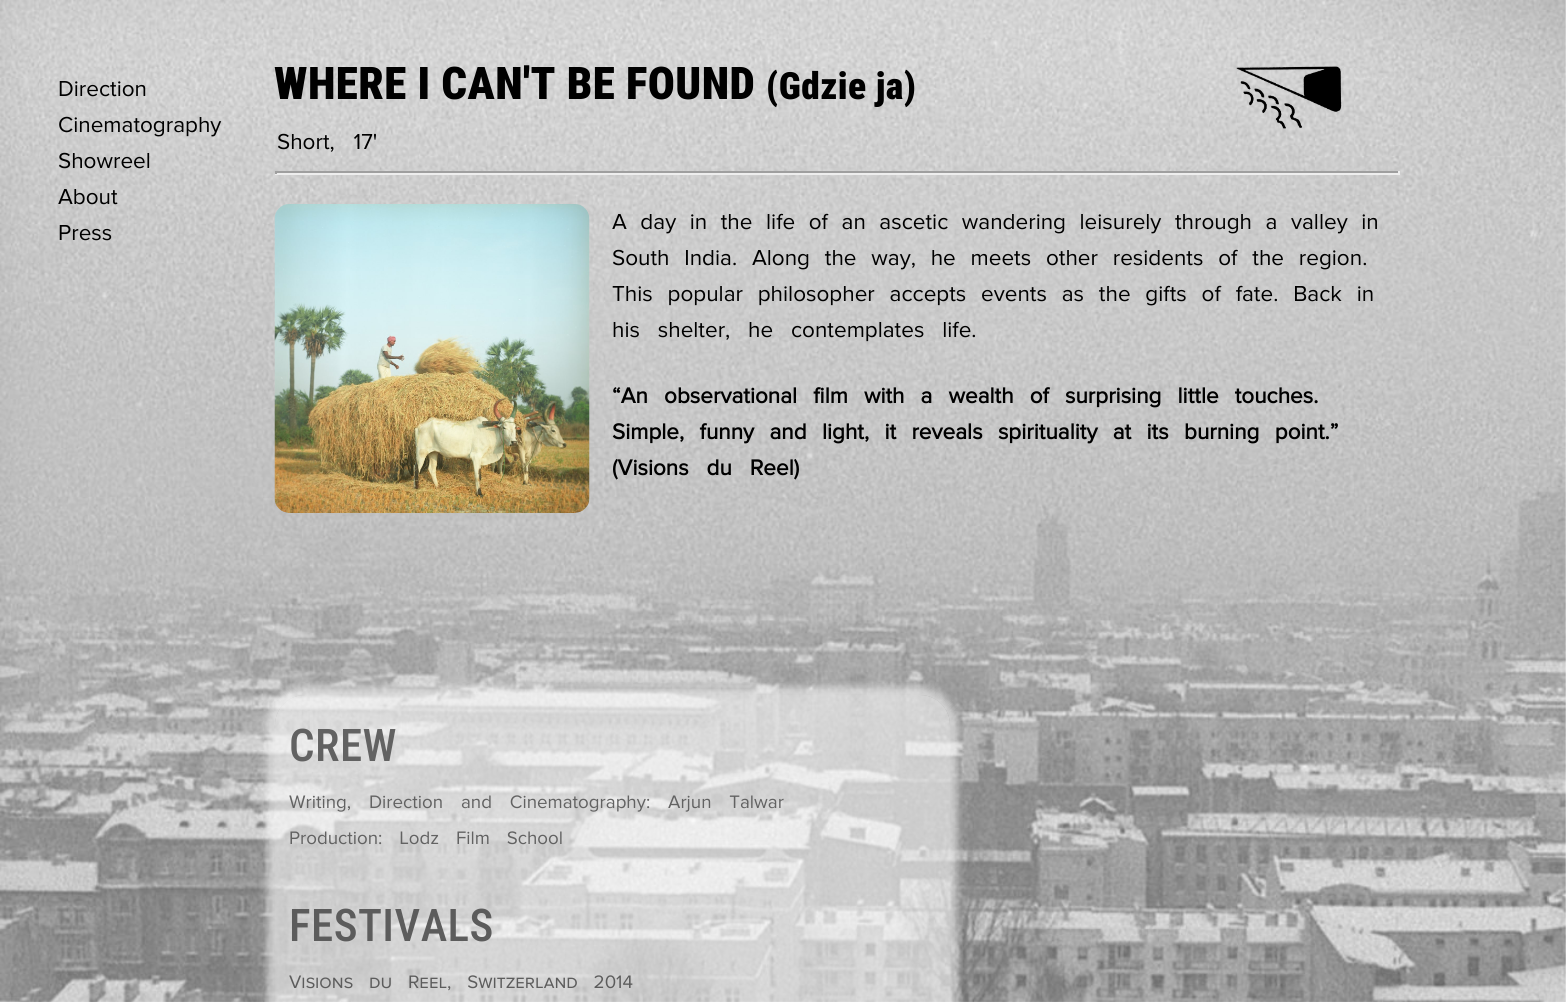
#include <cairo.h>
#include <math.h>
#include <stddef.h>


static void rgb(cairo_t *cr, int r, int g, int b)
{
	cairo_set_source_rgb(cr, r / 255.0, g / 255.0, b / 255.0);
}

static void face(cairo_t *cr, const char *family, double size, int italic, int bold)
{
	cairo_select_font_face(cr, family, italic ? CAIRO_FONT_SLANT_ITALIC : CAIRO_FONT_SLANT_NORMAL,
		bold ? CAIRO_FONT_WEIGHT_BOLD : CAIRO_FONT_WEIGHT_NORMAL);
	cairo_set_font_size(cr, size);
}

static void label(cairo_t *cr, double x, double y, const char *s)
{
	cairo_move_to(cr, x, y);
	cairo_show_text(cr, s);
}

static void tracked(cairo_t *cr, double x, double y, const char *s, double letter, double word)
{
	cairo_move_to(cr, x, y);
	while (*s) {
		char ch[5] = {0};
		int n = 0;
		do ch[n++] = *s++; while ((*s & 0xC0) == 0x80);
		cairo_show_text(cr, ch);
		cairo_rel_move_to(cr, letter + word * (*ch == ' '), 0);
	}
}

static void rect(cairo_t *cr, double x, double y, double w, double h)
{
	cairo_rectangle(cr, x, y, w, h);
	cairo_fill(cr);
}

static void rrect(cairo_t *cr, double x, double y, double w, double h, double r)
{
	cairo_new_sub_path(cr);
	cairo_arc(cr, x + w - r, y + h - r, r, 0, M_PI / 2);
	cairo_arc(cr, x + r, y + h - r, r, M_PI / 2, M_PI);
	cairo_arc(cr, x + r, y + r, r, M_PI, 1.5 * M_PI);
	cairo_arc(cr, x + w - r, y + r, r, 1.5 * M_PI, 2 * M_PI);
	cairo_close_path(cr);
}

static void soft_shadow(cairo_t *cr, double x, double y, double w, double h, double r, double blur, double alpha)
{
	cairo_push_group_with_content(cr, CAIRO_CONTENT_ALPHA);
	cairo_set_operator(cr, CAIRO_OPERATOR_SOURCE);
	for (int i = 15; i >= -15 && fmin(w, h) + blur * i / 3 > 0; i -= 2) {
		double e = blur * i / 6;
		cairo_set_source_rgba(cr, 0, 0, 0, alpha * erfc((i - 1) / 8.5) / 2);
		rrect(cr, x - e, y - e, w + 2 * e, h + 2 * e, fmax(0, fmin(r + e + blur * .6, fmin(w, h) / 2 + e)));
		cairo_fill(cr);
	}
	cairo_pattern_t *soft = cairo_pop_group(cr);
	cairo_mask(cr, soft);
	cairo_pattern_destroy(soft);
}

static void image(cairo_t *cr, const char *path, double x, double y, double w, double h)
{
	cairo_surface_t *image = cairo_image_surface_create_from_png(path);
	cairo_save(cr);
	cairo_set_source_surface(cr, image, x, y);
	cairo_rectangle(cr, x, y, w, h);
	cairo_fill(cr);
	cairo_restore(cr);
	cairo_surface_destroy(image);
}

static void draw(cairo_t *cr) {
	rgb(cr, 255, 255, 255);
	cairo_paint(cr);
	image(cr, "image0.png", 0, 0, 1566, 1002);
	face(cr, "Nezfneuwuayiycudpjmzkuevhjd", 22.5, 0, 0);
	rgb(cr, 0, 0, 0);
	label(cr, 58, 96, "Direction");
	label(cr, 58, 132, "Cinematography");
	label(cr, 58, 168, "Showreel");
	label(cr, 58, 204, "About");
	label(cr, 58, 240, "Press");
	face(cr, "Roboto Condensed Black", 45, 0, 0);
	tracked(cr, 274, 99, "WHERE I CAN'T BE FOUND", 0.45, 0);
	face(cr, "Roboto Condensed Black", 37.5, 0, 0);
	tracked(cr, 766, 99, "(Gdzie ja)", 0.45, 0);
	face(cr, "Nezfneuwuayiycudpjmzkuevhjd", 22.5, 0, 0);
	tracked(cr, 277, 149, "Short, 17'", 0, 13);
	rgb(cr, 159, 159, 159);
	rect(cr, 275, 171, 1125, 2);
	rgb(cr, 238, 238, 238);
	rect(cr, 1398, 171, 2, 3);
	rect(cr, 275, 173, 1125, 2);
	rgb(cr, 159, 159, 159);
	rect(cr, 275, 171, 2, 3);
	image(cr, "image1.png", 274, 204, 316, 309);
	rgb(cr, 0, 0, 0);
	tracked(cr, 612, 229, "A day in the life of an ascetic wandering leisurely through a valley in", 0, 7.75);
	tracked(cr, 612, 265, "South India. Along the way, he meets other residents of the region.", 0, 9);
	tracked(cr, 612, 301, "This popular philosopher accepts events as the gifts of fate. Back in", 0, 9);
	tracked(cr, 612, 337, "his shelter, he contemplates life.", 0, 12);
	face(cr, "Nezfneuwuayiycudpjmzkuevhjd", 22.5, 0, 1);
	tracked(cr, 612, 403, "“An observational film with a wealth of surprising little touches.", 0, 10.25);
	tracked(cr, 612, 439, "Simple, funny and light, it reveals spirituality at its burning point.”", 0, 9.5);
	tracked(cr, 612, 475, "(Visions du Reel)", 0, 12);
	cairo_save(cr);
	cairo_set_fill_rule(cr, CAIRO_FILL_RULE_EVEN_ODD);
	cairo_new_path(cr);
	cairo_move_to(cr, 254, 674);
	cairo_line_to(cr, 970, 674);
	cairo_line_to(cr, 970, 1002);
	cairo_line_to(cr, 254, 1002);
	cairo_close_path(cr);
	cairo_move_to(cr, 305, 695);
	cairo_line_to(cr, 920, 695);
	cairo_curve_to(cr, 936.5, 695, 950, 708.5, 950, 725);
	cairo_line_to(cr, 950, 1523);
	cairo_curve_to(cr, 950, 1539.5, 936.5, 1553, 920, 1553);
	cairo_line_to(cr, 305, 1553);
	cairo_curve_to(cr, 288.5, 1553, 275, 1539.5, 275, 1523);
	cairo_line_to(cr, 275, 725);
	cairo_curve_to(cr, 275, 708.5, 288.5, 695, 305, 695);
	cairo_close_path(cr);
	cairo_clip(cr);
	rgb(cr, 255, 255, 255);
	soft_shadow(cr, 267, 687, 690, 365, 38, 4, 0.56);
	cairo_restore(cr);
	cairo_set_source_rgba(cr, 1, 1, 1, 0.56);
	rrect(cr, 275, 695, 675, 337, 30);
	cairo_fill(cr);
	face(cr, "Roboto Condensed Medium", 45, 0, 0);
	rgb(cr, 98, 98, 98);
	tracked(cr, 289, 761, "CREW", 0.45, 0);
	face(cr, "Nezfneuwuayiycudpjmzkuevhjd", 18.75, 0, 0);
	tracked(cr, 289, 808, "Writing, Direction and Cinematography: Arjun Talwar", 0, 13);
	tracked(cr, 289, 844, "Production: Lodz Film School", 0, 12);
	face(cr, "Roboto Condensed Medium", 45, 0, 0);
	rgb(cr, 92, 92, 92);
	tracked(cr, 289, 941, "FESTIVALS", 0.45, 0);
	face(cr, "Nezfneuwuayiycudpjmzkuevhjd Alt", 18.75, 0, 0);
	tracked(cr, 289, 988, "Visions du Reel, Switzerland 2014", 0, 11);
	image(cr, "image2.png", 1236, 66, 106, 63);
}

int main(void) {
	cairo_surface_t *surface = cairo_image_surface_create(CAIRO_FORMAT_RGB24, 1566, 1002);
	cairo_t *cr = cairo_create(surface);
	cairo_font_options_t *options = cairo_font_options_create();
	cairo_font_options_set_hint_metrics(options, CAIRO_HINT_METRICS_OFF);
	cairo_font_options_set_hint_style(options, CAIRO_HINT_STYLE_NONE);
	cairo_set_font_options(cr, options);
	cairo_set_miter_limit(cr, 4);
	draw(cr);
	cairo_surface_write_to_png(surface, "render.png");
	cairo_font_options_destroy(options);
	cairo_destroy(cr);
	cairo_surface_destroy(surface);
	return 0;
}
